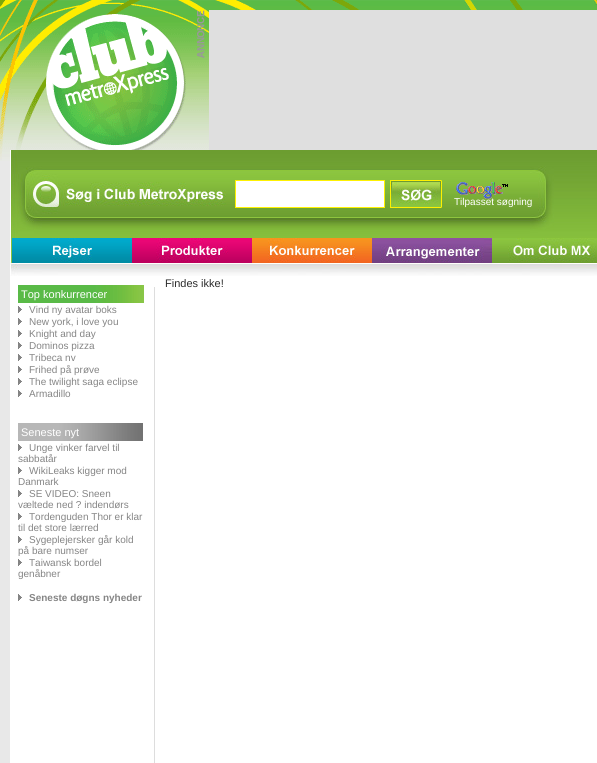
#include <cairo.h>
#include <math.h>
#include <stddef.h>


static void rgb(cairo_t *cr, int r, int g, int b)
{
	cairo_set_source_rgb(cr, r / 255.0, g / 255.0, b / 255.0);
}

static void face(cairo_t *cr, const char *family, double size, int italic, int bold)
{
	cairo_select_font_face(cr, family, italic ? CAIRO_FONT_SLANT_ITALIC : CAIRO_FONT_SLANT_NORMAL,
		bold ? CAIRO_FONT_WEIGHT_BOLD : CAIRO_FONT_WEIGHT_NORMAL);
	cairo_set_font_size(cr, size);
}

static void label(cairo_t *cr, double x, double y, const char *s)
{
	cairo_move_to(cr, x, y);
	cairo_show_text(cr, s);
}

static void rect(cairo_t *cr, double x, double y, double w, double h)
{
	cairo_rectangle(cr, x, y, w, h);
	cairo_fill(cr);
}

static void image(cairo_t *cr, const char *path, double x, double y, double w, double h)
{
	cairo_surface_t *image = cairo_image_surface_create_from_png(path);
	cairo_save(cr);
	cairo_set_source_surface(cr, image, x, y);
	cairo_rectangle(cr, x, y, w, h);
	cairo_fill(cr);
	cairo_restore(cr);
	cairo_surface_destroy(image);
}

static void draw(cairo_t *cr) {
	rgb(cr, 232, 232, 232);
	cairo_paint(cr);
	image(cr, "image0.png", 0, 0, 597, 161);
	image(cr, "image1.png", 197, 10, 8, 48);
	rgb(cr, 223, 223, 223);
	rect(cr, 209, 10, 388, 140);
	rgb(cr, 255, 255, 255);
	rect(cr, 10, 276, 587, 487);
	image(cr, "image2.png", 10, 150, 587, 126);
	cairo_rectangle(cr, 235.5, 180.5, 149, 27);
	cairo_fill_preserve(cr);
	rgb(cr, 254, 241, 2);
	cairo_set_line_width(cr, 1);
	cairo_stroke(cr);
	image(cr, "image3.png", 390, 180, 52, 28);
	image(cr, "image4.png", 456, 182, 52, 17);
	face(cr, "Liberation Sans", 10, 0, 0);
	rgb(cr, 255, 255, 255);
	label(cr, 454, 205, "Tilpasset søgning");
	image(cr, "image5.png", 12, 238, 120, 25);
	image(cr, "image6.png", 132, 238, 120, 25);
	image(cr, "image7.png", 252, 238, 120, 25);
	image(cr, "image8.png", 372, 238, 120, 25);
	image(cr, "image9.png", 492, 238, 105, 25);
	face(cr, "Liberation Sans", 11, 0, 0);
	rgb(cr, 43, 43, 43);
	label(cr, 165, 287, "Findes ikke!");
	image(cr, "image10.png", 18, 285, 126, 18);
	rgb(cr, 255, 255, 255);
	label(cr, 21, 298, "Top konkurrencer");
	image(cr, "image11.png", 18, 306, 4, 7);
	face(cr, "Liberation Sans", 10, 0, 0);
	rgb(cr, 133, 133, 133);
	label(cr, 29, 313, "Vind ny avatar boks");
	image(cr, "image11.png", 18, 318, 4, 7);
	label(cr, 29, 325, "New york, i love you");
	image(cr, "image11.png", 18, 330, 4, 7);
	label(cr, 29, 337, "Knight and day");
	image(cr, "image11.png", 18, 342, 4, 7);
	label(cr, 29, 349, "Dominos pizza");
	image(cr, "image11.png", 18, 354, 4, 7);
	label(cr, 29, 361, "Tribeca nv");
	image(cr, "image11.png", 18, 366, 4, 7);
	label(cr, 29, 373, "Frihed på prøve");
	image(cr, "image11.png", 18, 378, 4, 7);
	label(cr, 29, 385, "The twilight saga eclipse");
	image(cr, "image11.png", 18, 390, 4, 7);
	label(cr, 29, 397, "Armadillo");
	image(cr, "image12.png", 18, 423, 125, 18);
	face(cr, "Liberation Sans", 11, 0, 0);
	rgb(cr, 255, 255, 255);
	label(cr, 21, 436, "Seneste nyt");
	image(cr, "image11.png", 18, 444, 4, 7);
	face(cr, "Liberation Sans", 10, 0, 0);
	rgb(cr, 133, 133, 133);
	label(cr, 29, 451, "Unge vinker farvel til");
	label(cr, 18, 462, "sabbatår");
	image(cr, "image11.png", 18, 467, 4, 7);
	label(cr, 29, 474, "WikiLeaks kigger mod");
	label(cr, 18, 485, "Danmark");
	image(cr, "image11.png", 18, 490, 4, 7);
	label(cr, 29, 497, "SE VIDEO: Sneen");
	label(cr, 18, 508, "væltede ned ? indendørs");
	image(cr, "image11.png", 18, 513, 4, 7);
	label(cr, 29, 520, "Tordenguden Thor er klar");
	label(cr, 18, 531, "til det store lærred");
	image(cr, "image11.png", 18, 536, 4, 7);
	label(cr, 29, 543, "Sygeplejersker går kold");
	label(cr, 18, 554, "på bare numser");
	image(cr, "image13.png", 18, 556, 4, 10);
	label(cr, 29, 566, "Taiwansk bordel");
	label(cr, 18, 577, "genåbner");
	image(cr, "image11.png", 18, 594, 4, 7);
	face(cr, "Liberation Sans", 10, 0, 1);
	label(cr, 29, 601, "Seneste døgns nyheder");
	rgb(cr, 221, 221, 221);
	rect(cr, 154, 287, 1, 476);
}

int main(void) {
	cairo_surface_t *surface = cairo_image_surface_create(CAIRO_FORMAT_RGB24, 597, 763);
	cairo_t *cr = cairo_create(surface);
	cairo_font_options_t *options = cairo_font_options_create();
	cairo_font_options_set_hint_metrics(options, CAIRO_HINT_METRICS_OFF);
	cairo_font_options_set_hint_style(options, CAIRO_HINT_STYLE_NONE);
	cairo_set_font_options(cr, options);
	cairo_set_miter_limit(cr, 4);
	draw(cr);
	cairo_surface_write_to_png(surface, "render.png");
	cairo_font_options_destroy(options);
	cairo_destroy(cr);
	cairo_surface_destroy(surface);
	return 0;
}
